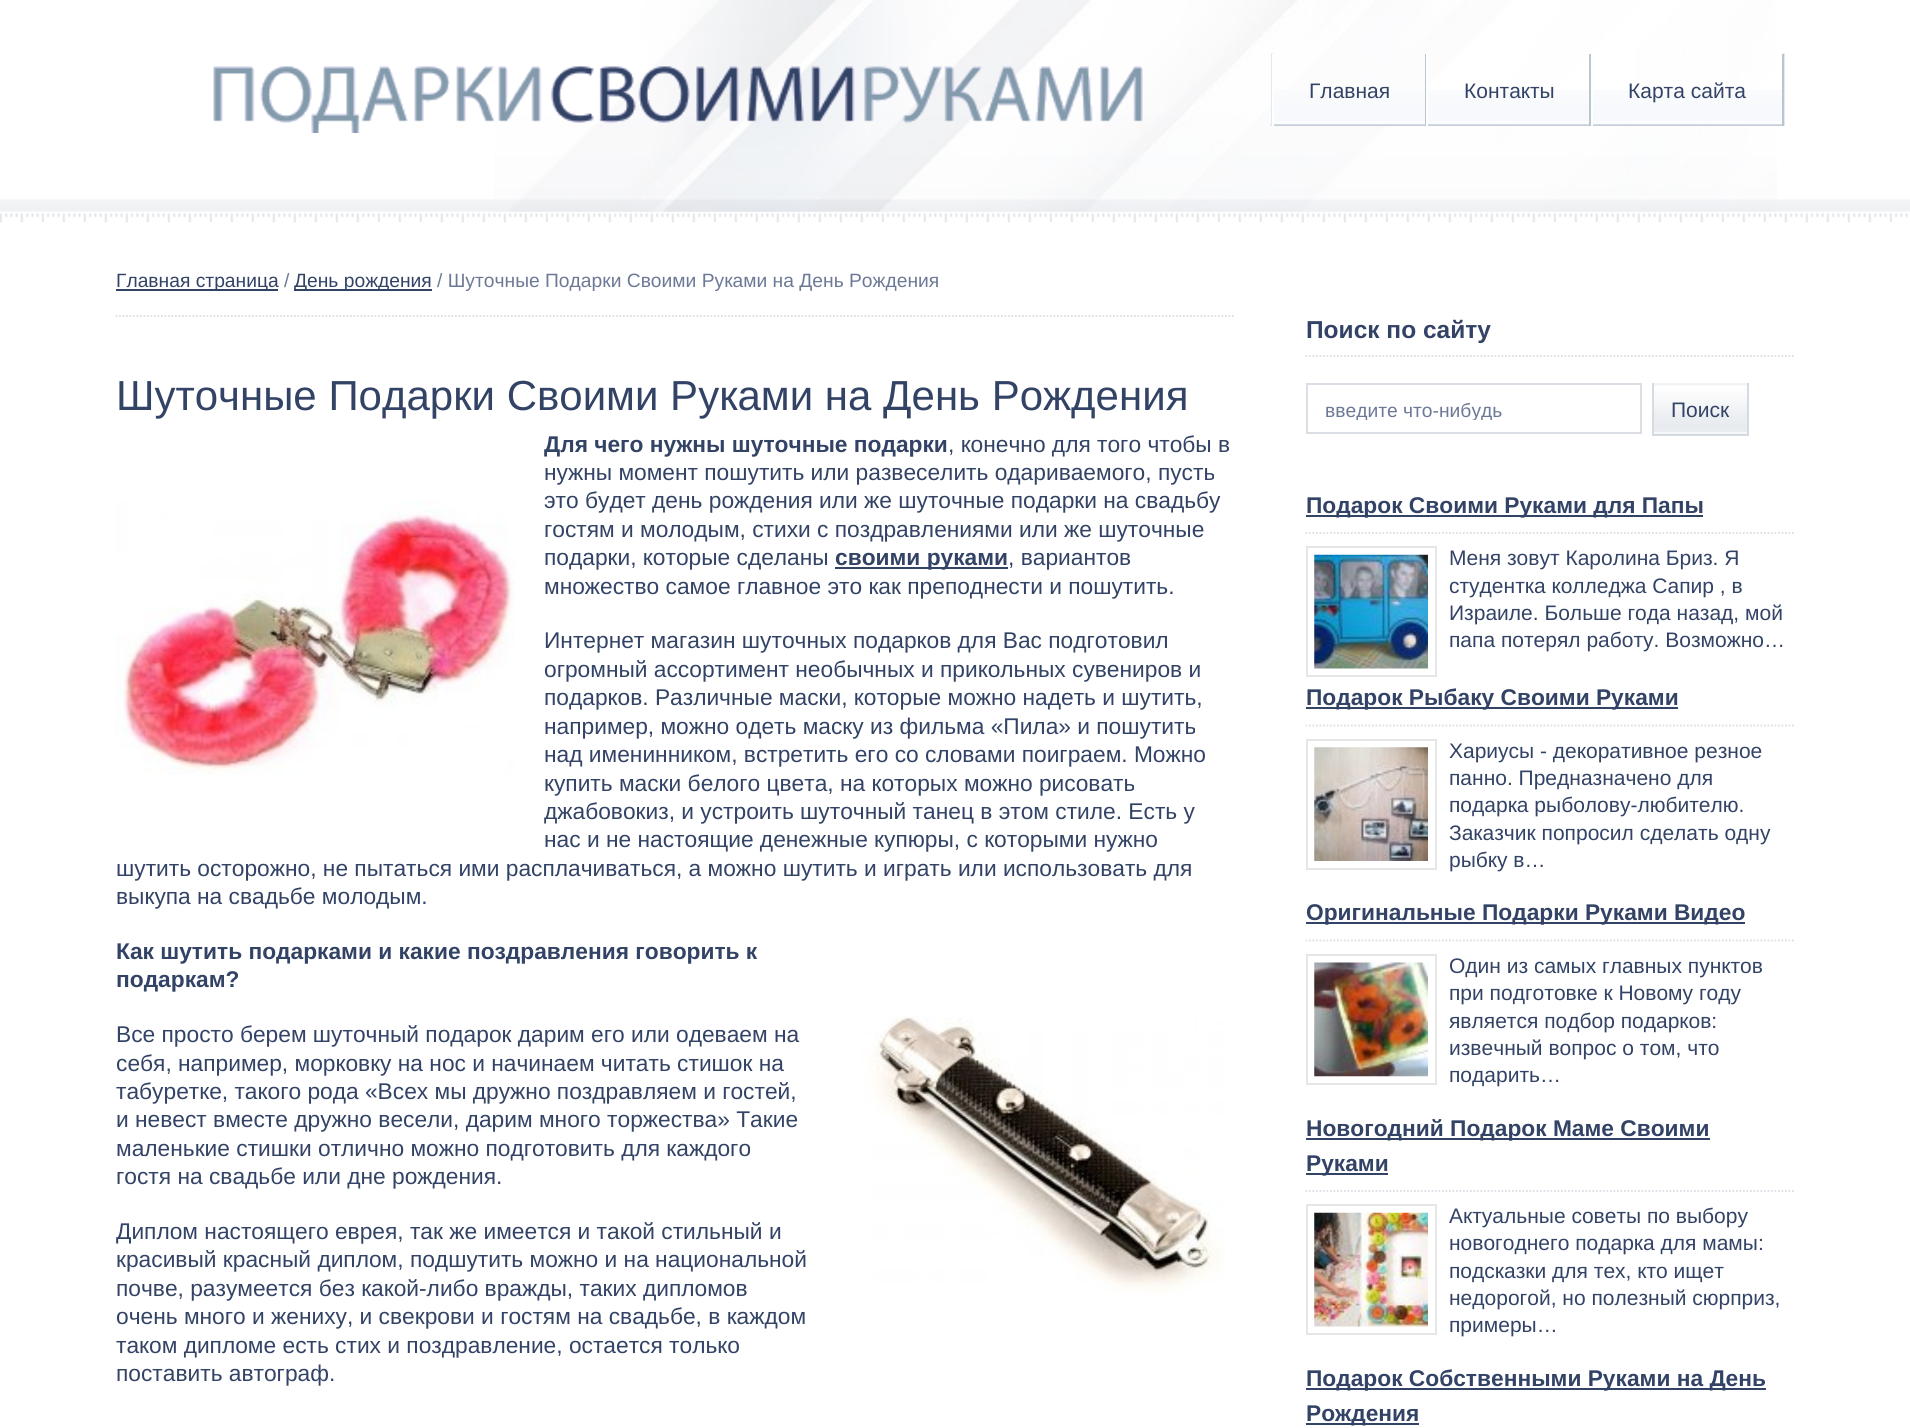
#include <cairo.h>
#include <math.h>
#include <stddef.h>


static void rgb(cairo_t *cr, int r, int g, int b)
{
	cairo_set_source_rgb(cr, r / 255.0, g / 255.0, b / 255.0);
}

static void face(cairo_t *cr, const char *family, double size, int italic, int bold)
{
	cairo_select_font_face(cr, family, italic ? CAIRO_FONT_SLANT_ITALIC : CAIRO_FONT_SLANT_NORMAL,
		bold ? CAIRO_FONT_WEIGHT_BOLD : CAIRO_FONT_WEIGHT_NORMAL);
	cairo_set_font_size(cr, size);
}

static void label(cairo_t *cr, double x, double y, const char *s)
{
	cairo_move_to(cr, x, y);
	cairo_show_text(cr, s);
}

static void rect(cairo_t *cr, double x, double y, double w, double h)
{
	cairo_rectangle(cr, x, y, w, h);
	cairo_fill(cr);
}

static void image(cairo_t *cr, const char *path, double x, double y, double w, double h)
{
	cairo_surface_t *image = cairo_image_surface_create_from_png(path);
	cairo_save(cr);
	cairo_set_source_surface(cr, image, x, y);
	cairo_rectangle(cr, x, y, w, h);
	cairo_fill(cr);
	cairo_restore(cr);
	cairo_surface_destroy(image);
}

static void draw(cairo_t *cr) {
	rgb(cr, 255, 255, 255);
	cairo_paint(cr);
	image(cr, "image0.png", 0, 199, 1910, 24);
	image(cr, "image1.png", 494, 0, 1283, 212);
	image(cr, "image2.png", 213, 66, 930, 67);
	image(cr, "image3.png", 1270, 90, 512, 36);
	rgb(cr, 228, 233, 237);
	rect(cr, 1783, 53, 2, 73);
	rect(cr, 1271, 53, 2, 73);
	rgb(cr, 184, 198, 209);
	rect(cr, 1425, 54, 1, 72);
	rgb(cr, 255, 255, 255);
	rect(cr, 1272, 54, 2, 72);
	face(cr, "Liberation Sans", 21, 0, 0);
	rgb(cr, 51, 67, 102);
	label(cr, 1309, 98, "Главная");
	rgb(cr, 184, 198, 209);
	rect(cr, 1589, 54, 2, 72);
	rgb(cr, 255, 255, 255);
	rect(cr, 1426, 54, 2, 72);
	rgb(cr, 51, 67, 102);
	label(cr, 1464, 98, "Контакты");
	rgb(cr, 184, 198, 209);
	rect(cr, 1782, 54, 2, 72);
	rgb(cr, 255, 255, 255);
	rect(cr, 1591, 90, 2, 36);
	rgb(cr, 51, 67, 102);
	label(cr, 1628, 98, "Карта сайта");
	cairo_new_path(cr);
	cairo_move_to(cr, 115.5, 316);
	cairo_line_to(cr, 1235.5, 316);
	rgb(cr, 219, 222, 228);
	cairo_set_line_width(cr, 1.8);
	cairo_set_dash(cr, (double[]){1.75, 1.75}, 2, 0);
	cairo_stroke(cr);
	rgb(cr, 51, 67, 102);
	rect(cr, 116, 289, 162, 2);
	face(cr, "Liberation Sans", 19.25, 0, 0);
	label(cr, 116, 287, "Главная страница");
	rgb(cr, 108, 121, 150);
	label(cr, 284, 287, "/");
	rgb(cr, 51, 67, 102);
	rect(cr, 294, 289, 138, 2);
	label(cr, 294, 287, "День рождения");
	rgb(cr, 108, 121, 150);
	label(cr, 437, 287, "/ Шуточные Подарки Своими Руками на День Рождения");
	face(cr, "Liberation Sans", 42, 0, 0);
	rgb(cr, 51, 67, 102);
	label(cr, 116, 410, "Шуточные Подарки Своими Руками на День Рождения");
	face(cr, "Liberation Sans", 22.75, 0, 1);
	label(cr, 544, 452, "Для чего нужны шуточные подарки");
	face(cr, "Liberation Sans", 22.75, 0, 0);
	label(cr, 948, 452, ", конечно для того чтобы в");
	label(cr, 544, 480, "нужны момент пошутить или развеселить одариваемого, пусть");
	image(cr, "image4.png", 115, 500, 400, 275);
	label(cr, 544, 508, "это будет день рождения или же шуточные подарки на свадьбу");
	label(cr, 544, 537, "гостям и молодым, стихи с поздравлениями или же шуточные");
	label(cr, 544, 565, "подарки, которые сделаны");
	rect(cr, 835, 567, 173, 2);
	face(cr, "Liberation Sans", 22.75, 0, 1);
	label(cr, 835, 565, "своими руками");
	face(cr, "Liberation Sans", 22.75, 0, 0);
	label(cr, 1008, 565, ", вариантов");
	label(cr, 544, 594, "множество самое главное это как преподнести и пошутить.");
	label(cr, 544, 648, "Интернет магазин шуточных подарков для Вас подготовил");
	label(cr, 544, 677, "огромный ассортимент необычных и прикольных сувениров и");
	label(cr, 544, 705, "подарков. Различные маски, которые можно надеть и шутить,");
	label(cr, 544, 734, "например, можно одеть маску из фильма «Пила» и пошутить");
	label(cr, 544, 762, "над именинником, встретить его со словами поиграем. Можно");
	label(cr, 544, 791, "купить маски белого цвета, на которых можно рисовать");
	label(cr, 544, 819, "джабовокиз, и устроить шуточный танец в этом стиле. Есть у");
	label(cr, 544, 847, "нас и не настоящие денежные купюры, с которыми нужно");
	label(cr, 116, 876, "шутить осторожно, не пытаться ими расплачиваться, а можно шутить и играть или использовать для");
	label(cr, 116, 904, "выкупа на свадьбе молодым.");
	face(cr, "Liberation Sans", 22.75, 0, 1);
	label(cr, 116, 959, "Как шутить подарками и какие поздравления говорить к");
	label(cr, 116, 987, "подаркам?");
	image(cr, "image5.png", 862, 1016, 363, 278);
	face(cr, "Liberation Sans", 22.75, 0, 0);
	label(cr, 116, 1042, "Все просто берем шуточный подарок дарим его или одеваем на");
	label(cr, 116, 1071, "себя, например, морковку на нос и начинаем читать стишок на");
	label(cr, 116, 1099, "табуретке, такого рода «Всех мы дружно поздравляем и гостей,");
	label(cr, 116, 1127, "и невест вместе дружно весели, дарим много торжества» Такие");
	label(cr, 116, 1156, "маленькие стишки отлично можно подготовить для каждого");
	label(cr, 116, 1184, "гостя на свадьбе или дне рождения.");
	label(cr, 116, 1239, "Диплом настоящего еврея, так же имеется и такой стильный и");
	label(cr, 116, 1267, "красивый красный диплом, подшутить можно и на национальной");
	label(cr, 116, 1296, "почве, разумеется без какой-либо вражды, таких дипломов");
	label(cr, 116, 1324, "очень много и жениху, и свекрови и гостям на свадьбе, в каждом");
	label(cr, 116, 1353, "таком дипломе есть стих и поздравление, остается только");
	label(cr, 116, 1381, "поставить автограф.");
	cairo_new_path(cr);
	cairo_move_to(cr, 1305.5, 356);
	cairo_line_to(cr, 1795.5, 356);
	rgb(cr, 219, 222, 228);
	cairo_stroke(cr);
	face(cr, "Liberation Sans", 24.5, 0, 1);
	rgb(cr, 51, 67, 102);
	label(cr, 1306, 338, "Поиск по сайту");
	cairo_rectangle(cr, 1307, 384, 334, 49);
	rgb(cr, 219, 222, 228);
	cairo_set_line_width(cr, 2);
	cairo_set_dash(cr, NULL, 0, 0);
	cairo_stroke(cr);
	cairo_save(cr);
	cairo_rectangle(cr, 1325, 399, 297, 21);
	cairo_clip(cr);
	face(cr, "Liberation Sans", 19.25, 0, 0);
	rgb(cr, 108, 121, 150);
	label(cr, 1325, 417, "введите что-нибудь");
	cairo_restore(cr);
	image(cr, "image6.png", 1654, 383, 93, 53);
	rgb(cr, 212, 219, 225);
	rect(cr, 1747, 383, 2, 53);
	rect(cr, 1652, 383, 2, 53);
	face(cr, "Liberation Sans", 21, 0, 0);
	rgb(cr, 51, 67, 102);
	label(cr, 1671, 417, "Поиск");
	cairo_new_path(cr);
	cairo_move_to(cr, 1305.5, 533);
	cairo_line_to(cr, 1795.5, 533);
	rgb(cr, 219, 222, 228);
	cairo_set_line_width(cr, 1.8);
	cairo_set_dash(cr, (double[]){1.75, 1.75}, 2, 0);
	cairo_stroke(cr);
	rgb(cr, 51, 67, 102);
	rect(cr, 1306, 515, 397, 2);
	face(cr, "Liberation Sans", 22.75, 0, 1);
	label(cr, 1306, 513, "Подарок Своими Руками для Папы");
	cairo_rectangle(cr, 1307, 547, 129, 129);
	rgb(cr, 230, 230, 230);
	cairo_set_line_width(cr, 2);
	cairo_set_dash(cr, NULL, 0, 0);
	cairo_stroke(cr);
	image(cr, "image7.png", 1314, 554, 114, 115);
	face(cr, "Liberation Sans", 21, 0, 0);
	rgb(cr, 51, 67, 102);
	label(cr, 1449, 565, "Меня зовут Каролина Бриз. Я");
	label(cr, 1449, 593, "студентка колледжа Сапир , в");
	label(cr, 1449, 620, "Израиле. Больше года назад, мой");
	label(cr, 1449, 647, "папа потерял работу. Возможно…");
	cairo_save(cr);
	cairo_rectangle(cr, 1306, 480, 490, 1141);
	cairo_clip(cr);
	cairo_new_path(cr);
	cairo_move_to(cr, 1305.5, 725.5);
	cairo_line_to(cr, 1795.5, 725.5);
	rgb(cr, 219, 222, 228);
	cairo_set_line_width(cr, 1.8);
	cairo_set_dash(cr, (double[]){1.75, 1.75}, 2, 0);
	cairo_stroke(cr);
	cairo_restore(cr);
	rect(cr, 1306, 707, 372, 2);
	face(cr, "Liberation Sans", 22.75, 0, 1);
	label(cr, 1306, 705, "Подарок Рыбаку Своими Руками");
	cairo_rectangle(cr, 1307, 740, 129, 129);
	rgb(cr, 230, 230, 230);
	cairo_stroke(cr);
	image(cr, "image8.png", 1314, 747, 114, 114);
	face(cr, "Liberation Sans", 21, 0, 0);
	rgb(cr, 51, 67, 102);
	label(cr, 1449, 758, "Хариусы - декоративное резное");
	label(cr, 1449, 785, "панно. Предназначено для");
	label(cr, 1449, 812, "подарка рыболову-любителю.");
	label(cr, 1449, 840, "Заказчик попросил сделать одну");
	label(cr, 1449, 867, "рыбку в…");
	cairo_save(cr);
	cairo_rectangle(cr, 1306, 480, 490, 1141);
	cairo_clip(cr);
	cairo_new_path(cr);
	cairo_move_to(cr, 1305.5, 940.5);
	cairo_line_to(cr, 1795.5, 940.5);
	rgb(cr, 219, 222, 228);
	cairo_set_line_width(cr, 1.8);
	cairo_set_dash(cr, (double[]){1.75, 1.75}, 2, 0);
	cairo_stroke(cr);
	cairo_restore(cr);
	rect(cr, 1306, 922, 439, 2);
	face(cr, "Liberation Sans", 22.75, 0, 1);
	label(cr, 1306, 920, "Оригинальные Подарки Руками Видео");
	cairo_rectangle(cr, 1307, 955, 129, 129);
	rgb(cr, 230, 230, 230);
	cairo_stroke(cr);
	image(cr, "image9.png", 1314, 962, 114, 115);
	face(cr, "Liberation Sans", 21, 0, 0);
	rgb(cr, 51, 67, 102);
	label(cr, 1449, 973, "Один из самых главных пунктов");
	label(cr, 1449, 1000, "при подготовке к Новому году");
	label(cr, 1449, 1028, "является подбор подарков:");
	label(cr, 1449, 1055, "извечный вопрос о том, что");
	label(cr, 1449, 1082, "подарить…");
	cairo_new_path(cr);
	cairo_move_to(cr, 1305.5, 1191);
	cairo_line_to(cr, 1795.5, 1191);
	rgb(cr, 219, 222, 228);
	cairo_set_line_width(cr, 1.8);
	cairo_set_dash(cr, (double[]){1.75, 1.75}, 2, 0);
	cairo_stroke(cr);
	rgb(cr, 51, 67, 102);
	rect(cr, 1306, 1138, 404, 2);
	face(cr, "Liberation Sans", 22.75, 0, 1);
	label(cr, 1306, 1136, "Новогодний Подарок Маме Своими");
	rect(cr, 1306, 1173, 82, 2);
	label(cr, 1306, 1171, "Руками");
	cairo_rectangle(cr, 1307, 1205, 129, 129);
	rgb(cr, 230, 230, 230);
	cairo_set_line_width(cr, 2);
	cairo_set_dash(cr, NULL, 0, 0);
	cairo_stroke(cr);
	image(cr, "image10.png", 1314, 1212, 114, 115);
	face(cr, "Liberation Sans", 21, 0, 0);
	rgb(cr, 51, 67, 102);
	label(cr, 1449, 1223, "Актуальные советы по выбору");
	label(cr, 1449, 1250, "новогоднего подарка для мамы:");
	label(cr, 1449, 1278, "подсказки для тех, кто ищет");
	label(cr, 1449, 1305, "недорогой, но полезный сюрприз,");
	label(cr, 1449, 1332, "примеры…");
	rect(cr, 1306, 1388, 460, 2);
	face(cr, "Liberation Sans", 22.75, 0, 1);
	label(cr, 1306, 1386, "Подарок Собственными Руками на День");
	rect(cr, 1306, 1423, 113, 2);
	label(cr, 1306, 1421, "Рождения");
}

int main(void) {
	cairo_surface_t *surface = cairo_image_surface_create(CAIRO_FORMAT_RGB24, 1910, 1428);
	cairo_t *cr = cairo_create(surface);
	cairo_font_options_t *options = cairo_font_options_create();
	cairo_font_options_set_hint_metrics(options, CAIRO_HINT_METRICS_OFF);
	cairo_font_options_set_hint_style(options, CAIRO_HINT_STYLE_NONE);
	cairo_set_font_options(cr, options);
	cairo_set_miter_limit(cr, 4);
	draw(cr);
	cairo_surface_write_to_png(surface, "render.png");
	cairo_font_options_destroy(options);
	cairo_destroy(cr);
	cairo_surface_destroy(surface);
	return 0;
}
